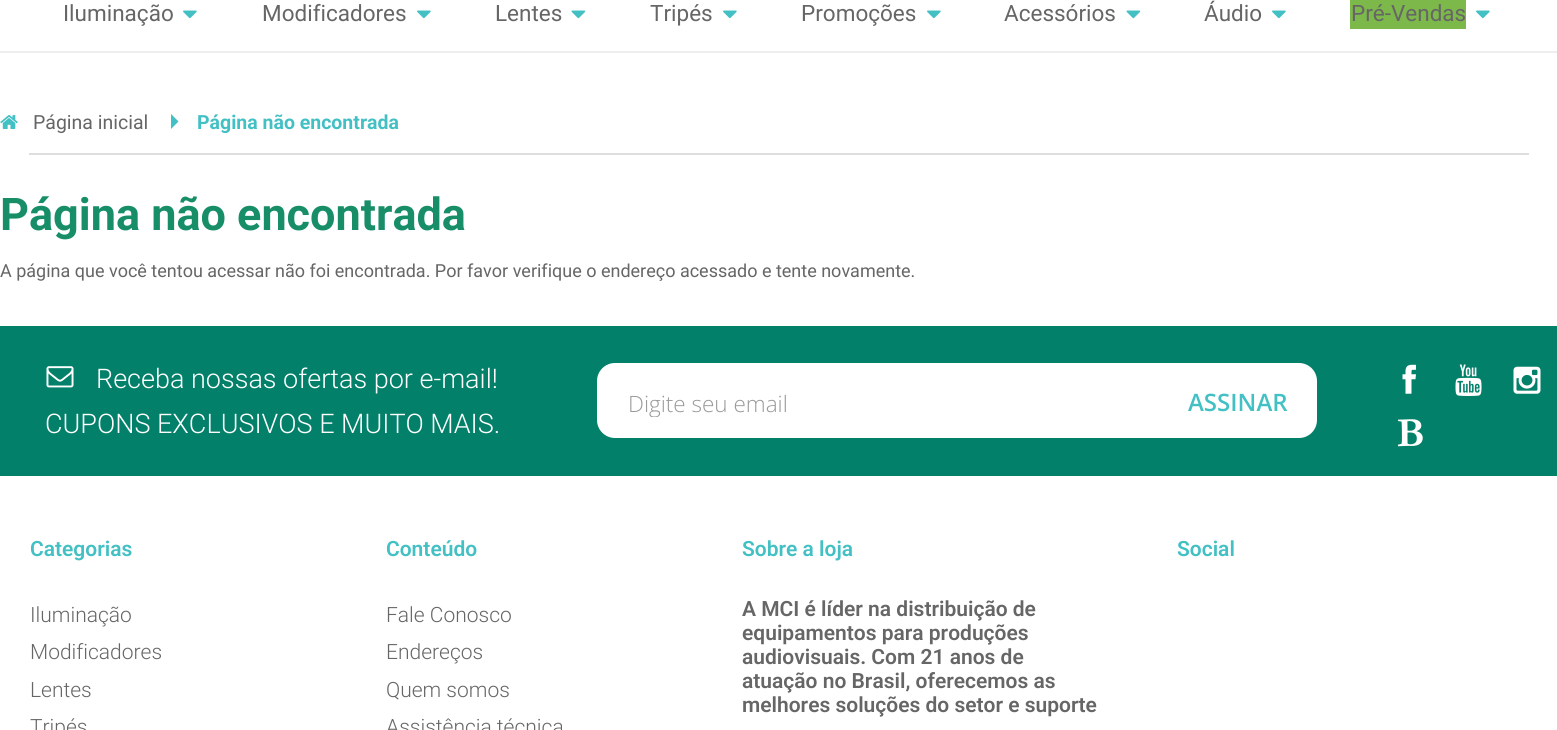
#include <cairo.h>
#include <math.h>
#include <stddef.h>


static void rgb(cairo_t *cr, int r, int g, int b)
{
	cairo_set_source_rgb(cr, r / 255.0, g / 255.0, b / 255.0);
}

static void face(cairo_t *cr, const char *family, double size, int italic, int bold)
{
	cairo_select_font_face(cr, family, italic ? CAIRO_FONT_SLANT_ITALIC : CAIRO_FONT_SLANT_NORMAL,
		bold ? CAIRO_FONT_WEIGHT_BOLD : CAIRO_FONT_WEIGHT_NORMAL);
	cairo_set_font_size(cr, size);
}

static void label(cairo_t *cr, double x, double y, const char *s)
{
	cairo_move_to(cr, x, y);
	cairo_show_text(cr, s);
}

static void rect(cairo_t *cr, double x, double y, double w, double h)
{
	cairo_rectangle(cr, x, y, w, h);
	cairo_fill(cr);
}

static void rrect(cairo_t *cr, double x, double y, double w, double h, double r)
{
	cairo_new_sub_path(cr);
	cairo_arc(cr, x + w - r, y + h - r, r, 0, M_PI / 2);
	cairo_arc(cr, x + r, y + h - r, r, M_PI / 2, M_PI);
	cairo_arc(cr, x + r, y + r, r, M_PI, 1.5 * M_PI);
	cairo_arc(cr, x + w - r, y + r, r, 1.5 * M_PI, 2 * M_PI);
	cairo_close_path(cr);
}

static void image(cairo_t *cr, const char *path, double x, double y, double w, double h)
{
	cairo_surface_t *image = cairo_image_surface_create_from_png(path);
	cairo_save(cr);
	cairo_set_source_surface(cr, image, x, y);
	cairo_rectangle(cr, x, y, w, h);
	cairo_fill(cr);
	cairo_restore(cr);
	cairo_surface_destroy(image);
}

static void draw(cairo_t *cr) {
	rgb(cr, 255, 255, 255);
	cairo_paint(cr);
	rgb(cr, 238, 238, 238);
	rect(cr, 0, 51, 1557, 2);
	face(cr, "Roboto", 22.5, 0, 0);
	rgb(cr, 102, 102, 102);
	label(cr, 63, 21, "Iluminação");
	image(cr, "image0.png", 183, 10, 14, 9);
	label(cr, 262, 21, "Modificadores");
	image(cr, "image0.png", 417, 10, 14, 9);
	label(cr, 495, 21, "Lentes");
	image(cr, "image1.png", 571, 10, 15, 9);
	label(cr, 650, 21, "Tripés");
	image(cr, "image0.png", 723, 10, 14, 9);
	label(cr, 801, 21, "Promoções");
	image(cr, "image0.png", 927, 10, 14, 9);
	label(cr, 1004, 21, "Acessórios");
	image(cr, "image1.png", 1126, 10, 15, 9);
	label(cr, 1204, 21, "Áudio");
	image(cr, "image0.png", 1272, 10, 14, 9);
	rgb(cr, 125, 184, 74);
	rect(cr, 1350, 0, 116, 29);
	rgb(cr, 102, 102, 102);
	label(cr, 1351, 21, "Pré-Vendas");
	image(cr, "image0.png", 1476, 10, 14, 9);
	image(cr, "image2.png", 0, 115, 18, 14);
	face(cr, "Roboto", 19.5, 0, 0);
	label(cr, 33, 129, "Página inicial");
	rgb(cr, 67, 192, 196);
	cairo_new_path(cr);
	cairo_move_to(cr, 171, 129);
	cairo_line_to(cr, 171, 114);
	cairo_line_to(cr, 178.5, 121.5);
	cairo_close_path(cr);
	cairo_fill(cr);
	face(cr, "Roboto", 19.5, 0, 1);
	label(cr, 197, 129, "Página não encontrada");
	rgb(cr, 222, 222, 222);
	rect(cr, 29, 153, 1500, 2);
	face(cr, "Roboto", 45, 0, 1);
	rgb(cr, 23, 142, 104);
	label(cr, 0, 230, "Página não encontrada");
	face(cr, "Roboto", 18, 0, 0);
	rgb(cr, 102, 102, 102);
	label(cr, 0, 277, "A página que você tentou acessar não foi encontrada. Por favor verifique o endereço acessado e tente novamente.");
	rgb(cr, 2, 128, 105);
	rect(cr, 0, 326, 1557, 150);
	image(cr, "image3.png", 46, 366, 28, 22);
	face(cr, "Roboto Light", 27, 0, 0);
	rgb(cr, 255, 255, 255);
	label(cr, 96, 388, "Receba nossas ofertas por e-mail!");
	label(cr, 45, 433, "CUPONS EXCLUSIVOS E MUITO MAIS.");
	rrect(cr, 597, 363, 720, 75, 18);
	cairo_fill(cr);
	cairo_save(cr);
	cairo_rectangle(cr, 627, 387, 660, 30);
	cairo_clip(cr);
	face(cr, "Open Sans Light", 22.5, 0, 0);
	rgb(cr, 153, 153, 153);
	label(cr, 628, 412, "Digite seu email");
	cairo_restore(cr);
	face(cr, "Open Sans SemiBold", 24, 0, 0);
	rgb(cr, 67, 192, 196);
	label(cr, 1188, 411, "ASSINAR");
	image(cr, "image4.png", 1402, 364, 14, 30);
	image(cr, "image5.png", 1455, 364, 27, 32);
	image(cr, "image6.png", 1513, 366, 28, 28);
	image(cr, "image7.png", 1398, 419, 25, 28);
	face(cr, "Roboto SemiBold", 21, 0, 0);
	label(cr, 30, 556, "Categorias");
	face(cr, "Roboto Light", 21, 0, 0);
	rgb(cr, 102, 102, 102);
	label(cr, 30, 622, "Iluminação");
	label(cr, 30, 659, "Modificadores");
	label(cr, 30, 697, "Lentes");
	label(cr, 30, 734, "Tripés");
	face(cr, "Roboto SemiBold", 21, 0, 0);
	rgb(cr, 67, 192, 196);
	label(cr, 386, 556, "Conteúdo");
	face(cr, "Roboto Light", 21, 0, 0);
	rgb(cr, 102, 102, 102);
	label(cr, 386, 622, "Fale Conosco");
	label(cr, 386, 659, "Endereços");
	label(cr, 386, 697, "Quem somos");
	label(cr, 386, 734, "Assistência técnica");
	face(cr, "Roboto SemiBold", 21, 0, 0);
	rgb(cr, 67, 192, 196);
	label(cr, 742, 556, "Sobre a loja");
	rgb(cr, 102, 102, 102);
	label(cr, 742, 616, "A MCI é líder na distribuição de");
	label(cr, 742, 640, "equipamentos para produções");
	label(cr, 742, 664, "audiovisuais. Com 21 anos de");
	label(cr, 742, 688, "atuação no Brasil, oferecemos as");
	label(cr, 742, 712, "melhores soluções do setor e suporte");
	rgb(cr, 67, 192, 196);
	label(cr, 1177, 556, "Social");
}

int main(void) {
	cairo_surface_t *surface = cairo_image_surface_create(CAIRO_FORMAT_RGB24, 1557, 730);
	cairo_t *cr = cairo_create(surface);
	cairo_font_options_t *options = cairo_font_options_create();
	cairo_font_options_set_hint_metrics(options, CAIRO_HINT_METRICS_OFF);
	cairo_font_options_set_hint_style(options, CAIRO_HINT_STYLE_NONE);
	cairo_set_font_options(cr, options);
	cairo_set_miter_limit(cr, 4);
	draw(cr);
	cairo_surface_write_to_png(surface, "render.png");
	cairo_font_options_destroy(options);
	cairo_destroy(cr);
	cairo_surface_destroy(surface);
	return 0;
}
